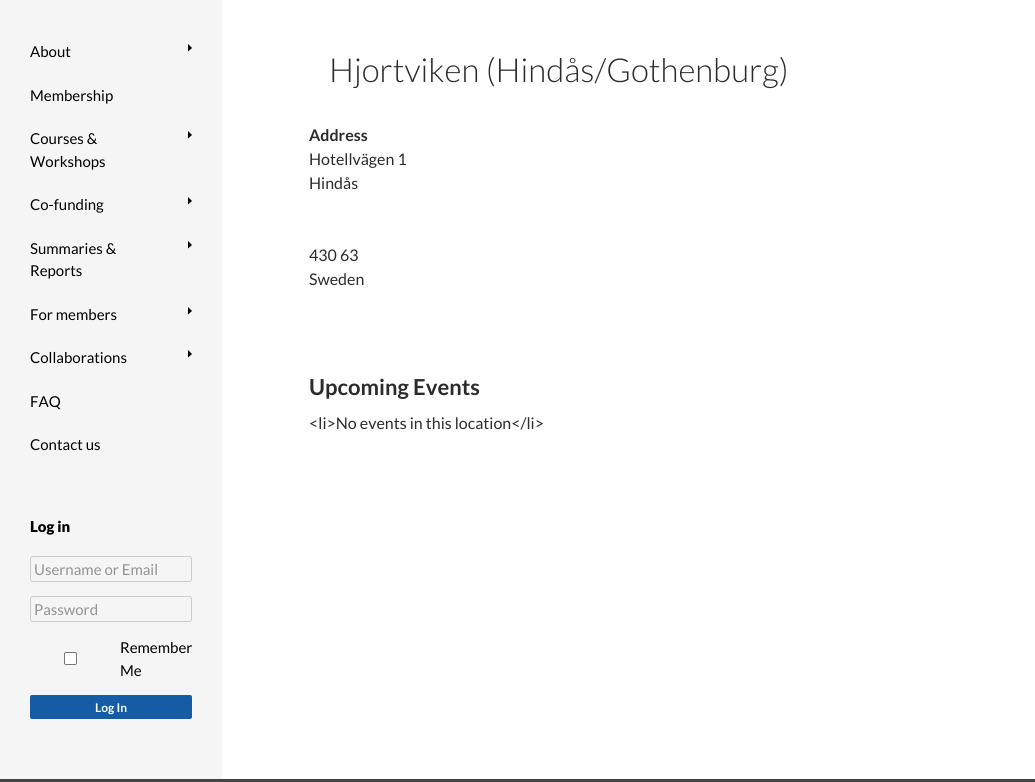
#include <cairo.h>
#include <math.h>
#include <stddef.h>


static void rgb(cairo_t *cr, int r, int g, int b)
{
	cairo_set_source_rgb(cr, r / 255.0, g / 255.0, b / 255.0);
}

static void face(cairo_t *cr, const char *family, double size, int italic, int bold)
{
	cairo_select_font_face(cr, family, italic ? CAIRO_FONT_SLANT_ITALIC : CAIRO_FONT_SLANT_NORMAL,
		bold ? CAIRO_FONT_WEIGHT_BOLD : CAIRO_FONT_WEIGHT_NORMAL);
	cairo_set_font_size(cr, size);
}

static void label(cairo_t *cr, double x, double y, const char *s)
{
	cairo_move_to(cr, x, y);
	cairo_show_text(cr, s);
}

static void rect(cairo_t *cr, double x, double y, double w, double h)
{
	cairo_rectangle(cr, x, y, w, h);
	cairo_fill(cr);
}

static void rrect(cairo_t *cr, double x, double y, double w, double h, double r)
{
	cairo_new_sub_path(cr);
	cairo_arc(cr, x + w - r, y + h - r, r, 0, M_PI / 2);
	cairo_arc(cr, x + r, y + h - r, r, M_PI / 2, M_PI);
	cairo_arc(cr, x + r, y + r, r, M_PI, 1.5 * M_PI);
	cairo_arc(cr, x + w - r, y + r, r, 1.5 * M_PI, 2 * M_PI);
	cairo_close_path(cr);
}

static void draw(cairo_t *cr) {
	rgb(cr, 255, 255, 255);
	cairo_paint(cr);
	rgb(cr, 245, 245, 245);
	rect(cr, 0, 0, 222, 779);
	face(cr, "Lato", 15, 0, 0);
	rgb(cr, 0, 0, 0);
	label(cr, 30, 57, "About");
	cairo_new_path(cr);
	cairo_move_to(cr, 188, 51.5);
	cairo_line_to(cr, 192, 48);
	cairo_line_to(cr, 188, 44);
	cairo_close_path(cr);
	cairo_fill(cr);
	label(cr, 30, 101, "Membership");
	label(cr, 30, 144, "Courses &");
	cairo_new_path(cr);
	cairo_move_to(cr, 188, 138.5);
	cairo_line_to(cr, 192, 135);
	cairo_line_to(cr, 188, 131);
	cairo_close_path(cr);
	cairo_fill(cr);
	label(cr, 30, 167, "Workshops");
	label(cr, 30, 210, "Co-funding");
	cairo_new_path(cr);
	cairo_move_to(cr, 188, 204.5);
	cairo_line_to(cr, 192, 201);
	cairo_line_to(cr, 188, 197);
	cairo_close_path(cr);
	cairo_fill(cr);
	label(cr, 30, 254, "Summaries &");
	cairo_new_path(cr);
	cairo_move_to(cr, 188, 248.5);
	cairo_line_to(cr, 192, 245);
	cairo_line_to(cr, 188, 241);
	cairo_close_path(cr);
	cairo_fill(cr);
	label(cr, 30, 276, "Reports");
	label(cr, 30, 320, "For members");
	cairo_new_path(cr);
	cairo_move_to(cr, 188, 314.5);
	cairo_line_to(cr, 192, 311);
	cairo_line_to(cr, 188, 307);
	cairo_close_path(cr);
	cairo_fill(cr);
	label(cr, 30, 363, "Collaborations");
	cairo_new_path(cr);
	cairo_move_to(cr, 188, 357.5);
	cairo_line_to(cr, 192, 354);
	cairo_line_to(cr, 188, 350);
	cairo_close_path(cr);
	cairo_fill(cr);
	label(cr, 30, 407, "FAQ");
	label(cr, 30, 450, "Contact us");
	face(cr, "Lato Black", 15, 0, 0);
	label(cr, 30, 532, "Log in");
	rrect(cr, 30.5, 556.5, 161, 25, 2.5);
	rgb(cr, 204, 204, 204);
	cairo_set_line_width(cr, 1);
	cairo_stroke(cr);
	face(cr, "Lato", 15, 0, 0);
	rgb(cr, 147, 147, 147);
	label(cr, 34, 575, "Username or Email");
	rrect(cr, 30.5, 596.5, 161, 25, 2.5);
	rgb(cr, 204, 204, 204);
	cairo_stroke(cr);
	rgb(cr, 147, 147, 147);
	label(cr, 34, 615, "Password");
	rgb(cr, 255, 255, 255);
	rrect(cr, 64.5, 652.5, 12, 12, 1.5);
	cairo_fill_preserve(cr);
	rgb(cr, 118, 118, 118);
	cairo_stroke(cr);
	rgb(cr, 0, 0, 0);
	label(cr, 120, 653, "Remember");
	label(cr, 120, 676, "Me");
	rgb(cr, 22, 91, 166);
	rrect(cr, 30, 695, 162, 24, 2);
	cairo_fill(cr);
	face(cr, "Lato", 12, 0, 1);
	rgb(cr, 255, 255, 255);
	label(cr, 95, 712, "Log In");
	face(cr, "Lato Light", 33, 0, 0);
	rgb(cr, 43, 43, 43);
	label(cr, 329, 82, "Hjortviken (Hindås/Gothenburg)");
	face(cr, "Lato", 16, 0, 1);
	label(cr, 309, 141, "Address");
	face(cr, "Lato", 16, 0, 0);
	label(cr, 309, 165, "Hotellvägen 1");
	label(cr, 309, 189, "Hindås");
	label(cr, 309, 261, "430 63");
	label(cr, 309, 285, "Sweden");
	face(cr, "Lato", 22, 0, 1);
	label(cr, 309, 395, "Upcoming Events");
	face(cr, "Lato", 16, 0, 0);
	label(cr, 309, 429, "<li>No events in this location</li>");
	rgb(cr, 68, 68, 68);
	rect(cr, 0, 779, 1035, 3);
}

int main(void) {
	cairo_surface_t *surface = cairo_image_surface_create(CAIRO_FORMAT_RGB24, 1035, 782);
	cairo_t *cr = cairo_create(surface);
	cairo_font_options_t *options = cairo_font_options_create();
	cairo_font_options_set_hint_metrics(options, CAIRO_HINT_METRICS_OFF);
	cairo_font_options_set_hint_style(options, CAIRO_HINT_STYLE_NONE);
	cairo_set_font_options(cr, options);
	cairo_set_miter_limit(cr, 4);
	draw(cr);
	cairo_surface_write_to_png(surface, "render.png");
	cairo_font_options_destroy(options);
	cairo_destroy(cr);
	cairo_surface_destroy(surface);
	return 0;
}
